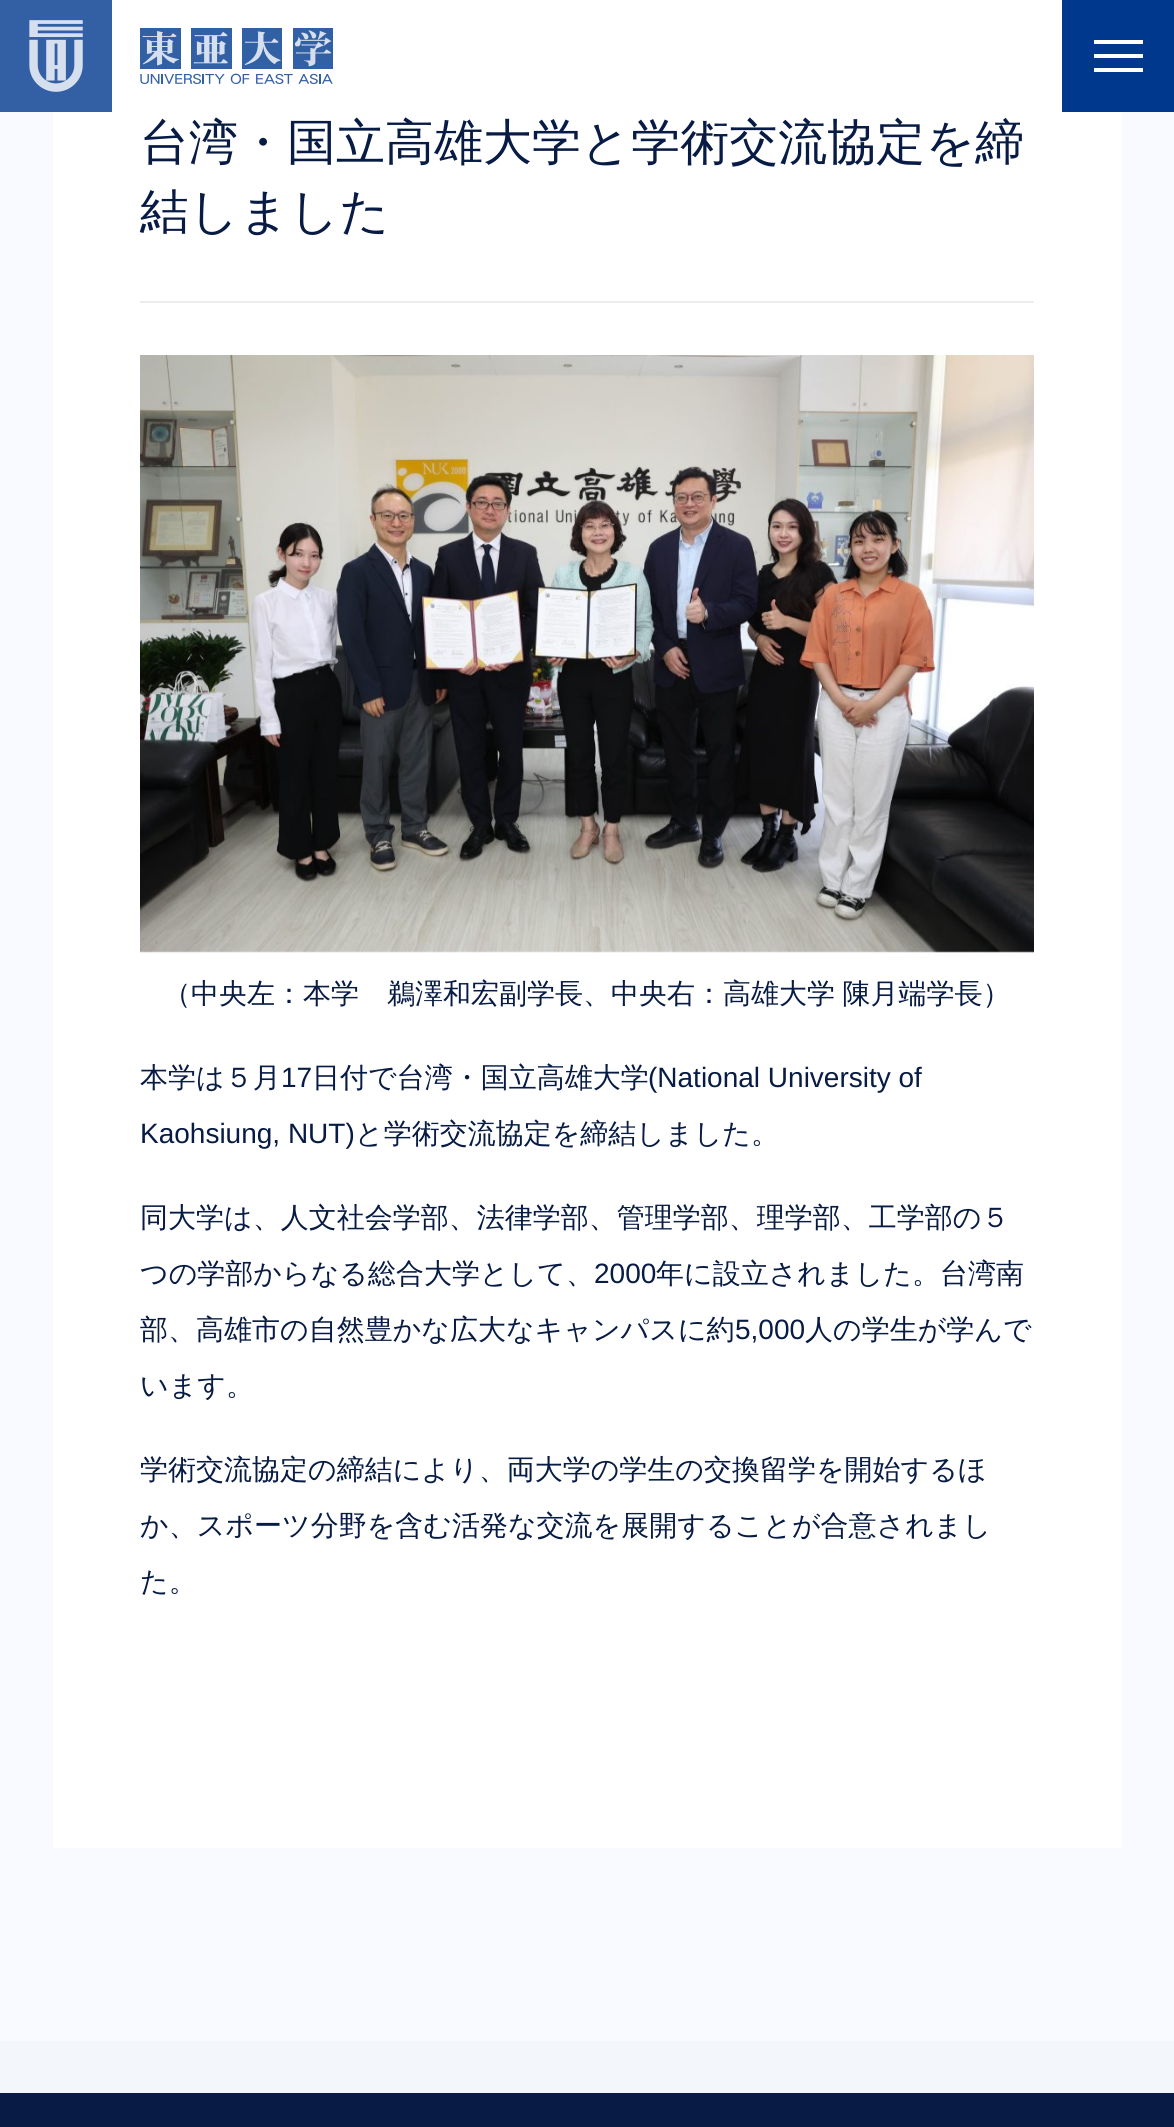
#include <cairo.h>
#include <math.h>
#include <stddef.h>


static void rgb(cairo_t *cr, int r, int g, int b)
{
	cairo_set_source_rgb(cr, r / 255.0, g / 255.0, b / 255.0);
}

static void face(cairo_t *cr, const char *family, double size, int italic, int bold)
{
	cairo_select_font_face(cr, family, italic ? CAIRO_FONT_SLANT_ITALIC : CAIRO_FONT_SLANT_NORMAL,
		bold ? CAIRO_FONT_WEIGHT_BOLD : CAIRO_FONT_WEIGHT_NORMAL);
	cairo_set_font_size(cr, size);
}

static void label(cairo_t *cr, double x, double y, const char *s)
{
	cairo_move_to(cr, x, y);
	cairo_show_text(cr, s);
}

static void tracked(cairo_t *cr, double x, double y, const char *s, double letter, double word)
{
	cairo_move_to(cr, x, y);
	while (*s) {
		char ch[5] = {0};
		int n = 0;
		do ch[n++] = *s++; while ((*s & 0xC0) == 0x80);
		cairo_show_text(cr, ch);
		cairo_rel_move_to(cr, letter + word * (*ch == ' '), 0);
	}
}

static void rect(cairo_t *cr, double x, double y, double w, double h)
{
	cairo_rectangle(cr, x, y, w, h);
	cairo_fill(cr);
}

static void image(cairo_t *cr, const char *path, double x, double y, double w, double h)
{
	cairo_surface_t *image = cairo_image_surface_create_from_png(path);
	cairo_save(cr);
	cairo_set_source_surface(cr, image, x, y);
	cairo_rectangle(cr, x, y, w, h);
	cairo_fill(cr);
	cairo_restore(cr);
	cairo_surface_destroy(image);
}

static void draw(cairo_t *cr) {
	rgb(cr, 243, 246, 251);
	cairo_paint(cr);
	rgb(cr, 255, 255, 255);
	rect(cr, 0, 0, 1062, 112);
	image(cr, "image0.png", 0, 0, 333, 112);
	rgb(cr, 0, 56, 141);
	rect(cr, 1062, 0, 112, 112);
	rgb(cr, 255, 255, 255);
	rect(cr, 1094, 40, 49, 4);
	rect(cr, 1094, 54, 49, 4);
	rect(cr, 1094, 68, 49, 4);
	rgb(cr, 249, 250, 255);
	rect(cr, 0, 112, 1174, 1929);
	rgb(cr, 255, 255, 255);
	rect(cr, 53, 112, 1069, 1736);
	rgb(cr, 235, 237, 239);
	rect(cr, 140, 301, 894, 2);
	face(cr, "WenQuanYi Zen Hei Medium", 49, 0, 0);
	rgb(cr, 7, 27, 68);
	label(cr, 140, 159, "台湾・国立高雄大学と学術交流協定を締");
	label(cr, 140, 228, "結しました");
	image(cr, "image1.png", 140, 355, 894, 598);
	face(cr, "WenQuanYi Zen Hei Medium", 28, 0, 0);
	tracked(cr, 163, 1003, "（中央左：本学　鵜澤和宏副学長、中央右：高雄大学 陳月端学長）", 0, -1);
	label(cr, 140, 1087, "本学は５月");
	face(cr, "Liberation Sans", 28, 0, 0);
	label(cr, 281, 1087, "17");
	face(cr, "WenQuanYi Zen Hei Medium", 28, 0, 0);
	label(cr, 312, 1087, "日付で台湾・国立高雄大学");
	face(cr, "Liberation Sans", 28, 0, 0);
	label(cr, 648, 1087, "(National University of");
	label(cr, 140, 1143, "Kaohsiung, NUT)");
	face(cr, "WenQuanYi Zen Hei Medium", 28, 0, 0);
	label(cr, 355, 1143, "と学術交流協定を締結しました。");
	label(cr, 140, 1227, "同大学は、人文社会学部、法律学部、管理学部、理学部、工学部の５");
	label(cr, 140, 1283, "つの学部からなる総合大学として、");
	face(cr, "Liberation Sans", 28, 0, 0);
	label(cr, 594, 1283, "2000");
	face(cr, "WenQuanYi Zen Hei Medium", 28, 0, 0);
	label(cr, 656, 1283, "年に設立されました。台湾南");
	label(cr, 140, 1339, "部、高雄市の自然豊かな広大なキャンパスに約");
	face(cr, "Liberation Sans", 28, 0, 0);
	label(cr, 735, 1339, "5,000");
	face(cr, "WenQuanYi Zen Hei Medium", 28, 0, 0);
	label(cr, 805, 1339, "人の学生が学んで");
	label(cr, 140, 1395, "います。");
	label(cr, 140, 1479, "学術交流協定の締結により、両大学の学生の交換留学を開始するほ");
	label(cr, 140, 1535, "か、スポーツ分野を含む活発な交流を展開することが合意されまし");
	label(cr, 140, 1591, "た。");
	rect(cr, 0, 2093, 1174, 34);
}

int main(void) {
	cairo_surface_t *surface = cairo_image_surface_create(CAIRO_FORMAT_RGB24, 1174, 2127);
	cairo_t *cr = cairo_create(surface);
	cairo_font_options_t *options = cairo_font_options_create();
	cairo_font_options_set_hint_metrics(options, CAIRO_HINT_METRICS_OFF);
	cairo_font_options_set_hint_style(options, CAIRO_HINT_STYLE_NONE);
	cairo_set_font_options(cr, options);
	cairo_set_miter_limit(cr, 4);
	draw(cr);
	cairo_surface_write_to_png(surface, "render.png");
	cairo_font_options_destroy(options);
	cairo_destroy(cr);
	cairo_surface_destroy(surface);
	return 0;
}
